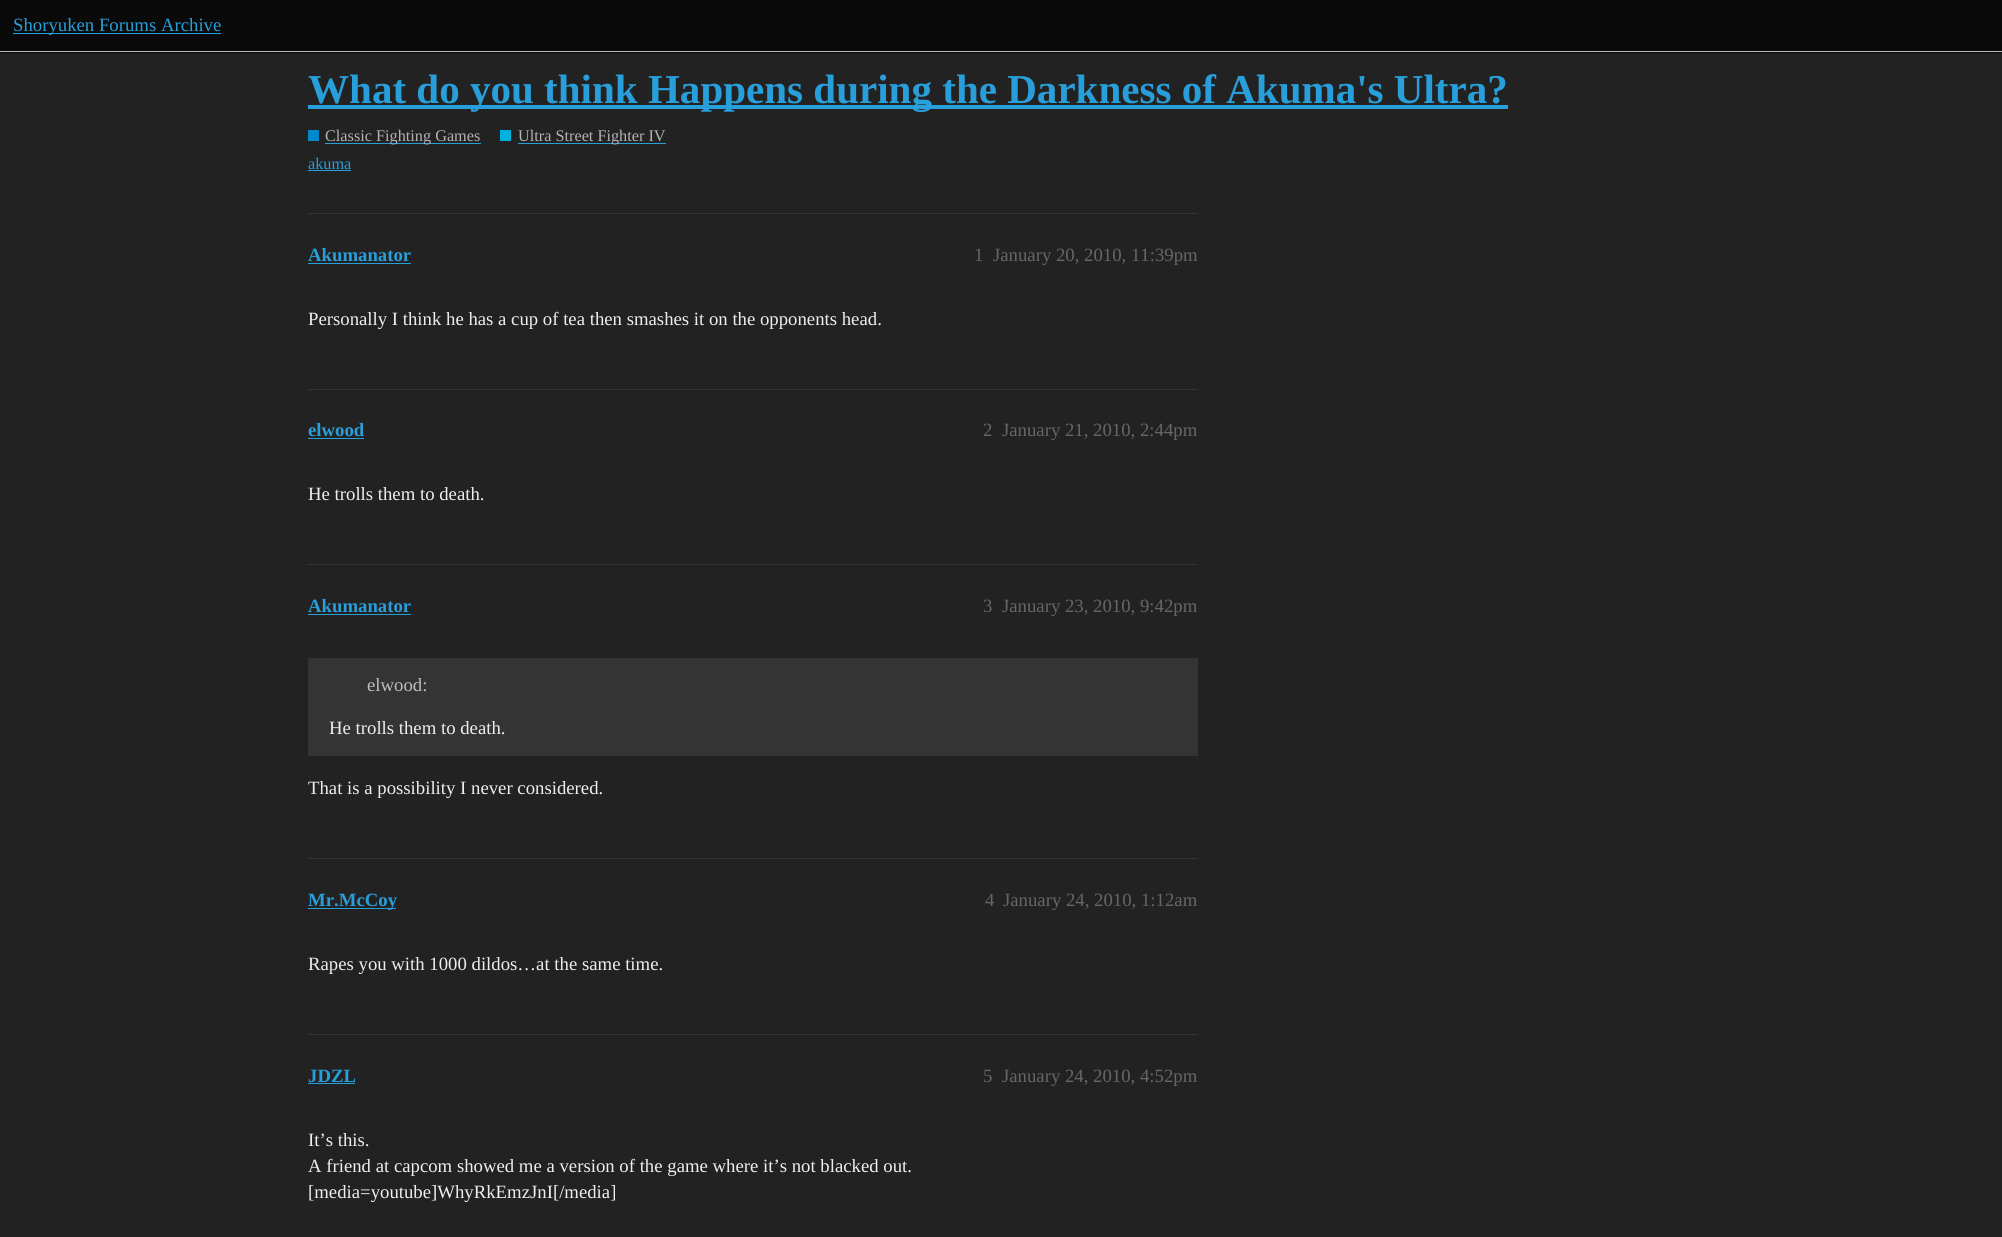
#include <cairo.h>
#include <math.h>
#include <stddef.h>


static void rgb(cairo_t *cr, int r, int g, int b)
{
	cairo_set_source_rgb(cr, r / 255.0, g / 255.0, b / 255.0);
}

static void face(cairo_t *cr, const char *family, double size, int italic, int bold)
{
	cairo_select_font_face(cr, family, italic ? CAIRO_FONT_SLANT_ITALIC : CAIRO_FONT_SLANT_NORMAL,
		bold ? CAIRO_FONT_WEIGHT_BOLD : CAIRO_FONT_WEIGHT_NORMAL);
	cairo_set_font_size(cr, size);
}

static void label(cairo_t *cr, double x, double y, const char *s)
{
	cairo_move_to(cr, x, y);
	cairo_show_text(cr, s);
}

static void rect(cairo_t *cr, double x, double y, double w, double h)
{
	cairo_rectangle(cr, x, y, w, h);
	cairo_fill(cr);
}

static void draw(cairo_t *cr) {
	rgb(cr, 34, 34, 34);
	cairo_paint(cr);
	rgb(cr, 10, 10, 10);
	rect(cr, 0, 0, 2002, 53);
	rgb(cr, 189, 189, 189);
	rect(cr, 0, 51, 2002, 1);
	rgb(cr, 40, 159, 218);
	rect(cr, 13, 33, 208, 1);
	face(cr, "Liberation Serif", 18.75, 0, 0);
	label(cr, 13, 31, "Shoryuken Forums Archive");
	rect(cr, 308, 105, 1200, 4);
	face(cr, "Liberation Serif", 41.05, 0, 1);
	label(cr, 308, 103, "What do you think Happens during the Darkness of Akuma's Ultra?");
	rgb(cr, 0, 136, 204);
	rect(cr, 308, 130, 11, 11);
	rgb(cr, 40, 159, 218);
	rect(cr, 325, 143, 156, 1);
	face(cr, "Liberation Serif", 16.25, 0, 0);
	rgb(cr, 179, 179, 179);
	label(cr, 325, 141, "Classic Fighting Games");
	rgb(cr, 0, 178, 223);
	rect(cr, 500, 130, 11, 11);
	rgb(cr, 40, 159, 218);
	rect(cr, 518, 143, 148, 1);
	rgb(cr, 179, 179, 179);
	label(cr, 518, 141, "Ultra Street Fighter IV");
	rgb(cr, 40, 159, 218);
	label(cr, 308, 169, "akuma");
	rect(cr, 308, 170, 43, 1);
	rgb(cr, 52, 52, 52);
	rect(cr, 308, 213, 890, 1);
	face(cr, "Liberation Serif", 18.75, 0, 1);
	rgb(cr, 40, 159, 218);
	label(cr, 308, 261, "Akumanator");
	rect(cr, 308, 263, 103, 1);
	face(cr, "Liberation Serif", 18.75, 0, 0);
	rgb(cr, 102, 102, 102);
	label(cr, 974, 261, "1");
	label(cr, 993, 261, "January 20, 2010, 11:39pm");
	rgb(cr, 238, 238, 238);
	label(cr, 308, 325, "Personally I think he has a cup of tea then smashes it on the opponents head.");
	rgb(cr, 52, 52, 52);
	rect(cr, 308, 389, 890, 1);
	face(cr, "Liberation Serif", 18.75, 0, 1);
	rgb(cr, 40, 159, 218);
	label(cr, 308, 436, "elwood");
	rect(cr, 308, 438, 56, 1);
	face(cr, "Liberation Serif", 18.75, 0, 0);
	rgb(cr, 102, 102, 102);
	label(cr, 983, 436, "2");
	label(cr, 1002, 436, "January 21, 2010, 2:44pm");
	rgb(cr, 238, 238, 238);
	label(cr, 308, 500, "He trolls them to death.");
	rgb(cr, 52, 52, 52);
	rect(cr, 308, 564, 890, 1);
	face(cr, "Liberation Serif", 18.75, 0, 1);
	rgb(cr, 40, 159, 218);
	label(cr, 308, 612, "Akumanator");
	rect(cr, 308, 614, 103, 1);
	face(cr, "Liberation Serif", 18.75, 0, 0);
	rgb(cr, 102, 102, 102);
	label(cr, 983, 612, "3");
	label(cr, 1002, 612, "January 23, 2010, 9:42pm");
	rgb(cr, 52, 52, 52);
	rect(cr, 308, 658, 890, 98);
	rgb(cr, 189, 189, 189);
	label(cr, 367, 691, "elwood:");
	rgb(cr, 238, 238, 238);
	label(cr, 329, 734, "He trolls them to death.");
	cairo_save(cr);
	cairo_rectangle(cr, 308, 639, 890, 181);
	cairo_clip(cr);
	label(cr, 308, 794, "That is a possibility I never considered.");
	cairo_restore(cr);
	rgb(cr, 52, 52, 52);
	rect(cr, 308, 858, 890, 1);
	rgb(cr, 40, 159, 218);
	rect(cr, 308, 908, 88, 1);
	face(cr, "Liberation Serif", 18.75, 0, 1);
	label(cr, 308, 906, "Mr.McCoy");
	face(cr, "Liberation Serif", 18.75, 0, 0);
	rgb(cr, 102, 102, 102);
	label(cr, 985, 906, "4");
	label(cr, 1003, 906, "January 24, 2010, 1:12am");
	rgb(cr, 238, 238, 238);
	label(cr, 308, 970, "Rapes you with 1000 dildos…at the same time.");
	rgb(cr, 52, 52, 52);
	rect(cr, 308, 1034, 890, 1);
	face(cr, "Liberation Serif", 18.75, 0, 1);
	rgb(cr, 40, 159, 218);
	label(cr, 308, 1082, "JDZL");
	rect(cr, 308, 1083, 47, 1);
	face(cr, "Liberation Serif", 18.75, 0, 0);
	rgb(cr, 102, 102, 102);
	label(cr, 983, 1082, "5");
	label(cr, 1002, 1082, "January 24, 2010, 4:52pm");
	rgb(cr, 238, 238, 238);
	label(cr, 308, 1146, "It’s this.");
	label(cr, 308, 1172, "A friend at capcom showed me a version of the game where it’s not blacked out.");
	label(cr, 308, 1198, "[media=youtube]WhyRkEmzJnI[/media]");
}

int main(void) {
	cairo_surface_t *surface = cairo_image_surface_create(CAIRO_FORMAT_RGB24, 2002, 1237);
	cairo_t *cr = cairo_create(surface);
	cairo_font_options_t *options = cairo_font_options_create();
	cairo_font_options_set_hint_metrics(options, CAIRO_HINT_METRICS_OFF);
	cairo_font_options_set_hint_style(options, CAIRO_HINT_STYLE_NONE);
	cairo_set_font_options(cr, options);
	cairo_set_miter_limit(cr, 4);
	draw(cr);
	cairo_surface_write_to_png(surface, "render.png");
	cairo_font_options_destroy(options);
	cairo_destroy(cr);
	cairo_surface_destroy(surface);
	return 0;
}
